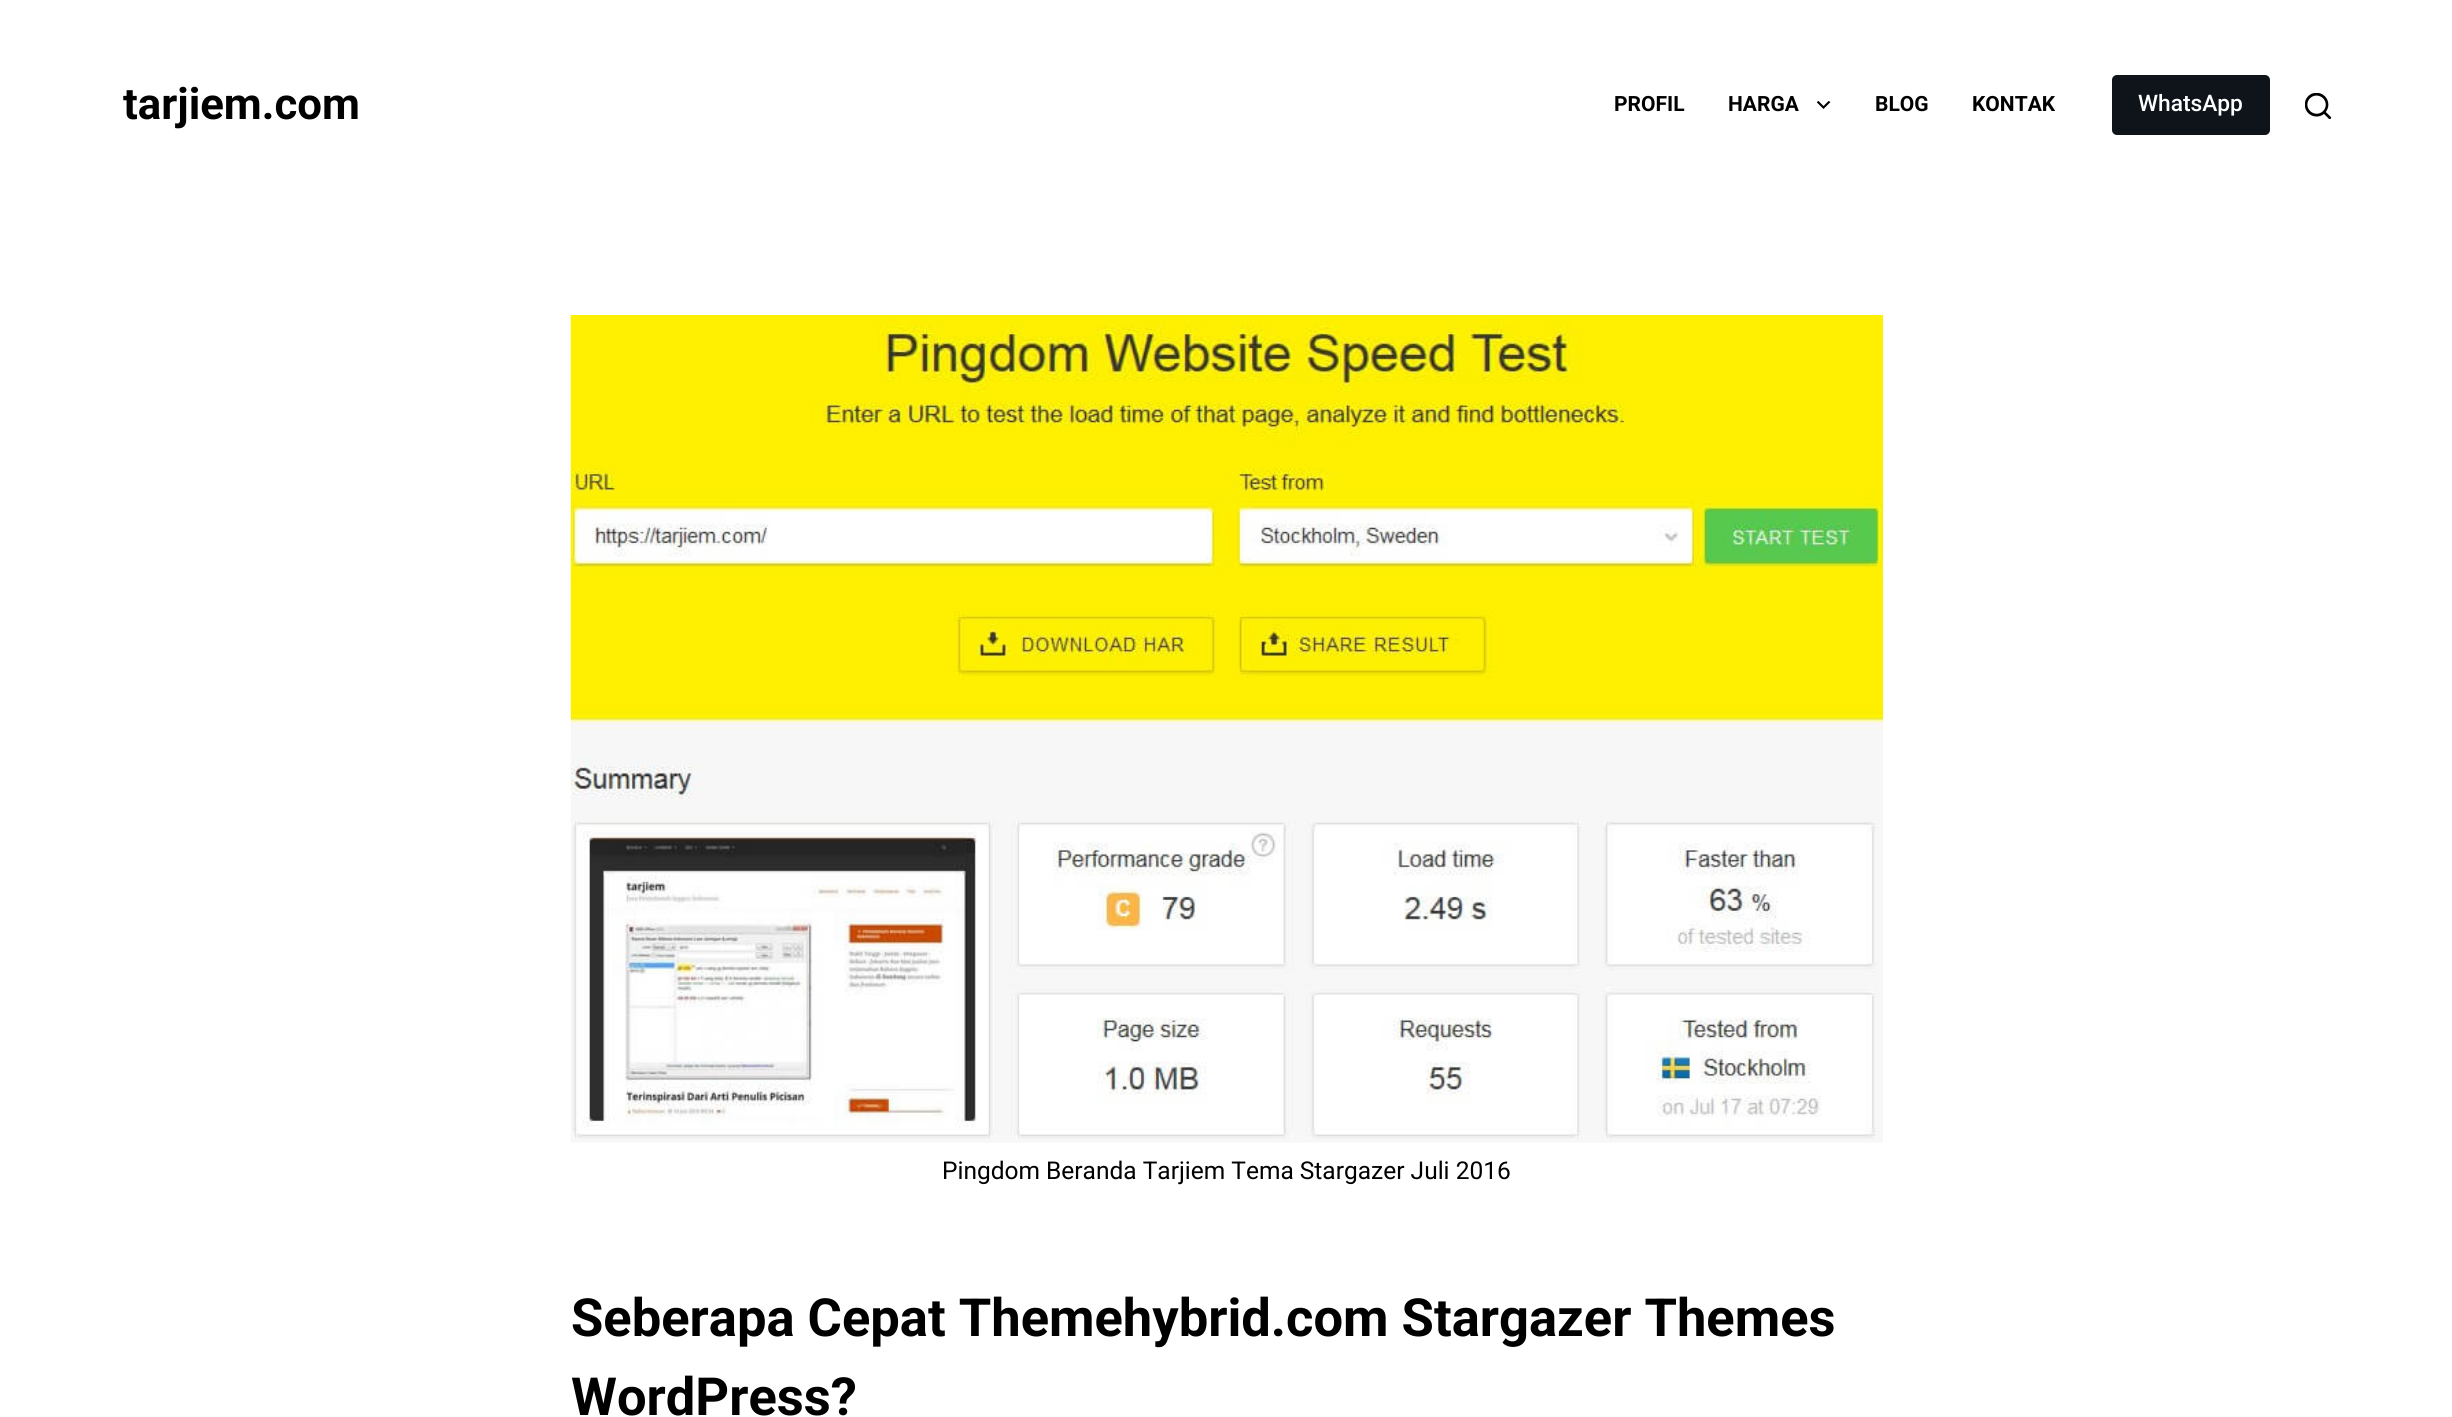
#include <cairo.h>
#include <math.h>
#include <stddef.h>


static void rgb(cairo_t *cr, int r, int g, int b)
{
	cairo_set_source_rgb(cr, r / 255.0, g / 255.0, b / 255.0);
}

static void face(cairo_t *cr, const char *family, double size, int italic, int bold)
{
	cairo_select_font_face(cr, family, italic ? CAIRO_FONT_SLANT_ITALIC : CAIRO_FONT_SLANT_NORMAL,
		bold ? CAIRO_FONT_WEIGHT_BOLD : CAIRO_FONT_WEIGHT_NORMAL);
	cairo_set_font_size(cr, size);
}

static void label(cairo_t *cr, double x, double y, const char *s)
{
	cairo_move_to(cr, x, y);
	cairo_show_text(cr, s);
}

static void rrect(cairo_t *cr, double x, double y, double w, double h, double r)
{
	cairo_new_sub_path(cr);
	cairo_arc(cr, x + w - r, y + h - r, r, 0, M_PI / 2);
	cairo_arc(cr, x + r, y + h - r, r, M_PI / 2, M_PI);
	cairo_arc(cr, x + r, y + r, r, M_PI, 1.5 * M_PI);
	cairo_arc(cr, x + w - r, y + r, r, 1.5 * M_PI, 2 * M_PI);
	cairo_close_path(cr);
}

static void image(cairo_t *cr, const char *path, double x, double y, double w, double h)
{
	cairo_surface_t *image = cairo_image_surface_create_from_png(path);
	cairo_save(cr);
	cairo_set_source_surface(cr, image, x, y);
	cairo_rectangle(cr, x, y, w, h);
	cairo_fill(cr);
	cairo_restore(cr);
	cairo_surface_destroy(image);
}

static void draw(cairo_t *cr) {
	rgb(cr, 255, 255, 255);
	cairo_paint(cr);
	face(cr, "Roboto", 43.75, 0, 1);
	rgb(cr, 0, 0, 0);
	label(cr, 123, 119, "tarjiem.com");
	face(cr, "Roboto", 21, 0, 1);
	label(cr, 1614, 111, "PROFIL");
	label(cr, 1728, 111, "HARGA");
	image(cr, "image0.png", 1817, 101, 14, 8);
	label(cr, 1875, 111, "BLOG");
	label(cr, 1972, 111, "KONTAK");
	rgb(cr, 15, 20, 26);
	rrect(cr, 2112, 75, 158, 60, 5);
	cairo_fill(cr);
	face(cr, "Roboto Medium", 22.75, 0, 0);
	rgb(cr, 255, 255, 255);
	label(cr, 2138, 111, "WhatsApp");
	image(cr, "image1.png", 2305, 93, 26, 26);
	image(cr, "image2.png", 570, 315, 1313, 828);
	face(cr, "Roboto", 24.5, 0, 0);
	rgb(cr, 0, 0, 0);
	label(cr, 942, 1179, "Pingdom Beranda Tarjiem Tema Stargazer Juli 2016");
	face(cr, "Roboto", 52.5, 0, 1);
	label(cr, 571, 1336, "Seberapa Cepat Themehybrid.com Stargazer Themes");
	label(cr, 571, 1415, "WordPress?");
}

int main(void) {
	cairo_surface_t *surface = cairo_image_surface_create(CAIRO_FORMAT_RGB24, 2452, 1417);
	cairo_t *cr = cairo_create(surface);
	cairo_font_options_t *options = cairo_font_options_create();
	cairo_font_options_set_hint_metrics(options, CAIRO_HINT_METRICS_OFF);
	cairo_font_options_set_hint_style(options, CAIRO_HINT_STYLE_NONE);
	cairo_set_font_options(cr, options);
	cairo_set_miter_limit(cr, 4);
	draw(cr);
	cairo_surface_write_to_png(surface, "render.png");
	cairo_font_options_destroy(options);
	cairo_destroy(cr);
	cairo_surface_destroy(surface);
	return 0;
}
